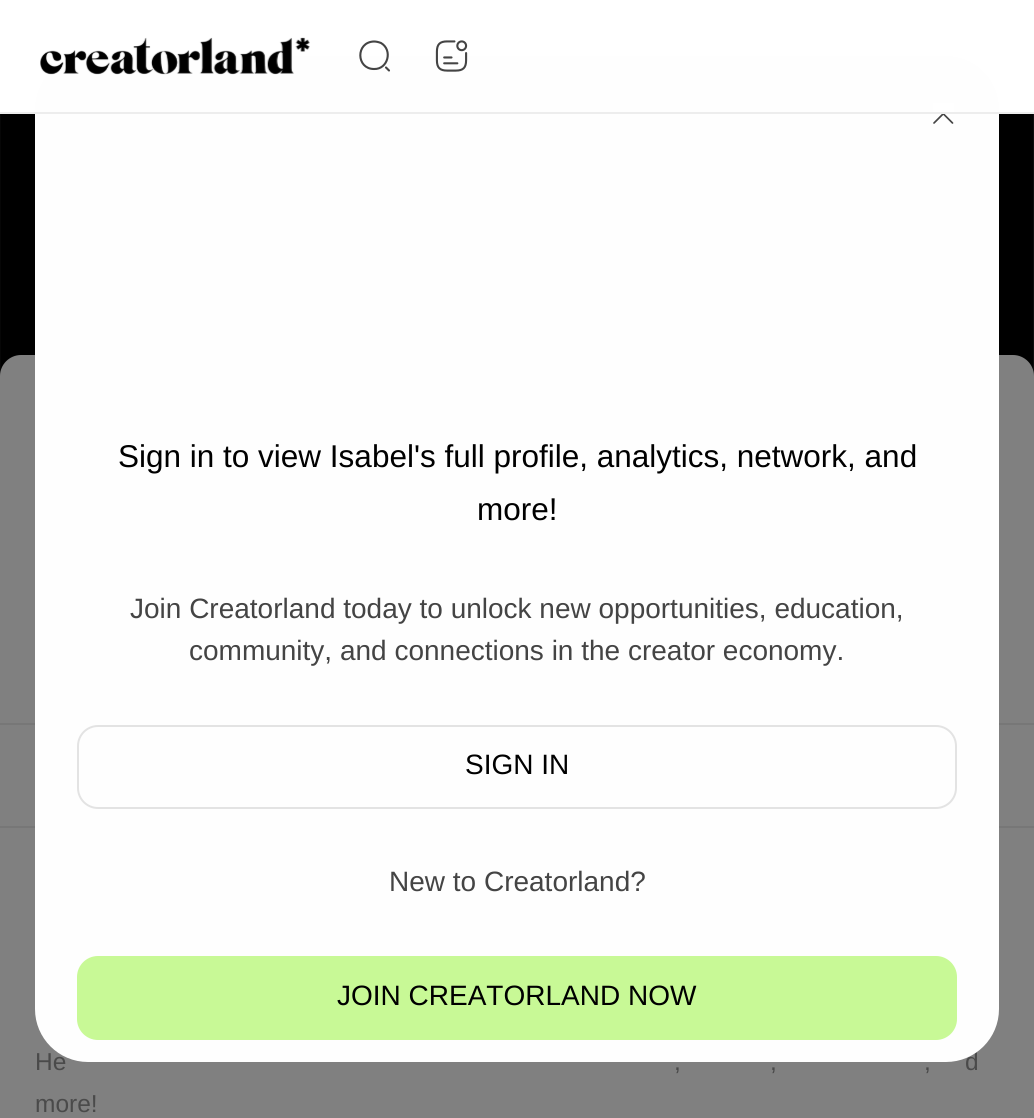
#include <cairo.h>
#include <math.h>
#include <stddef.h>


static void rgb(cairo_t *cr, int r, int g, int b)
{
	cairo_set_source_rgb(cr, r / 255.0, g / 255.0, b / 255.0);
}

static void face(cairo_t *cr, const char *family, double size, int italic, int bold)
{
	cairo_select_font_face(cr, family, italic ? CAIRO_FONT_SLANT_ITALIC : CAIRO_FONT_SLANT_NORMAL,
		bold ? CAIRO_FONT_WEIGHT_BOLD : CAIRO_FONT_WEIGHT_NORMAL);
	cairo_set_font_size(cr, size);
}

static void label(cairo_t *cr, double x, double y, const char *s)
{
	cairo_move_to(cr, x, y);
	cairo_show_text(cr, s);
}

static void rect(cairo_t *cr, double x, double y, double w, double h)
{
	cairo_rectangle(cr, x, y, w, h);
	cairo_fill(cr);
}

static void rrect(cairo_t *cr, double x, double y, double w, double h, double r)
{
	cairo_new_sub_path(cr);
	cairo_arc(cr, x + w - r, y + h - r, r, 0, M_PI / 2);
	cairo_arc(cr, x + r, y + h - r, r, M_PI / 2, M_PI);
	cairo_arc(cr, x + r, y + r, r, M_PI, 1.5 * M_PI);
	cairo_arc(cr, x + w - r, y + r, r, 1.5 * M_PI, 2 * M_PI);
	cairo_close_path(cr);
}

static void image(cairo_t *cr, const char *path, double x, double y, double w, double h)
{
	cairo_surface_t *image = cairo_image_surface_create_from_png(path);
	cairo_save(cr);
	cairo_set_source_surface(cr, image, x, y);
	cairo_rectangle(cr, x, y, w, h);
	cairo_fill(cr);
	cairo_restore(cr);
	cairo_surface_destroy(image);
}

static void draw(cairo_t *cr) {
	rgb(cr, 255, 255, 255);
	cairo_paint(cr);
	image(cr, "image2.png", 0, 114, 1034, 262);
	rgb(cr, 128, 128, 128);
	cairo_new_path(cr);
	cairo_move_to(cr, 21, 355);
	cairo_line_to(cr, 1013, 355);
	cairo_curve_to(cr, 1024.5, 355, 1034, 364.5, 1034, 376);
	cairo_line_to(cr, 1034, 949);
	cairo_line_to(cr, 0, 949);
	cairo_line_to(cr, 0, 376);
	cairo_curve_to(cr, 0, 364.5, 9.5, 355, 21, 355);
	cairo_close_path(cr);
	cairo_fill(cr);
	rgb(cr, 119, 119, 119);
	rect(cr, 0, 723, 1034, 2);
	rect(cr, 0, 826, 1034, 2);
	rgb(cr, 128, 128, 128);
	rect(cr, 0, 949, 1034, 169);
	face(cr, "Liberation Sans", 24.5, 0, 0);
	rgb(cr, 74, 74, 74);
	label(cr, 35, 1070, "He");
	label(cr, 965, 1070, "d");
	rgb(cr, 254, 254, 254);
	rrect(cr, 35, 56, 964, 1006, 53);
	cairo_fill(cr);
	cairo_new_path(cr);
	cairo_move_to(cr, 934, 123);
	cairo_line_to(cr, 952.5, 104.5);
	cairo_move_to(cr, 952.5, 123);
	cairo_line_to(cr, 934, 104.5);
	rgb(cr, 68, 68, 68);
	cairo_set_line_width(cr, 1.7);
	cairo_set_line_cap(cr, CAIRO_LINE_CAP_ROUND);
	cairo_set_line_join(cr, CAIRO_LINE_JOIN_ROUND);
	cairo_stroke(cr);
	face(cr, "Liberation Sans", 31.5, 0, 0);
	rgb(cr, 0, 0, 0);
	label(cr, 118, 467, "Sign in to view Isabel's full profile, analytics, network, and");
	label(cr, 477, 520, "more!");
	face(cr, "Liberation Sans", 28, 0, 0);
	rgb(cr, 68, 68, 68);
	label(cr, 130, 618, "Join Creatorland today to unlock new opportunities, education,");
	label(cr, 189, 660, "community, and connections in the creator economy.");
	rrect(cr, 78, 726, 878, 82, 20);
	rgb(cr, 227, 227, 227);
	cairo_set_line_width(cr, 2);
	cairo_set_line_cap(cr, CAIRO_LINE_CAP_BUTT);
	cairo_set_line_join(cr, CAIRO_LINE_JOIN_MITER);
	cairo_stroke(cr);
	rgb(cr, 0, 0, 0);
	label(cr, 465, 774, "SIGN IN");
	rgb(cr, 68, 68, 68);
	label(cr, 389, 891, "New to Creatorland?");
	rgb(cr, 200, 249, 150);
	rrect(cr, 78, 957, 878, 82, 20);
	cairo_fill_preserve(cr);
	cairo_stroke(cr);
	rgb(cr, 0, 0, 0);
	label(cr, 337, 1005, "JOIN CREATORLAND NOW");
	rgb(cr, 255, 255, 255);
	rect(cr, 933, 103, 21, 9);
	rgb(cr, 237, 237, 237);
	rect(cr, 0, 112, 1034, 2);
	image(cr, "image0.png", 40, 37, 270, 38);
	cairo_new_path(cr);
	cairo_move_to(cr, 374, 69);
	cairo_curve_to(cr, 388, 69.5, 393, 50, 381, 43);
	cairo_curve_to(cr, 378.5, 42, 376, 41.5, 374, 41.5);
	cairo_curve_to(cr, 355.5, 42, 356, 69, 374, 69);
	cairo_close_path(cr);
	cairo_move_to(cr, 389, 70.5);
	cairo_line_to(cr, 386, 67.5);
	rgb(cr, 68, 68, 68);
	cairo_set_line_width(cr, 2.1);
	cairo_set_line_cap(cr, CAIRO_LINE_CAP_ROUND);
	cairo_set_line_join(cr, CAIRO_LINE_JOIN_ROUND);
	cairo_stroke(cr);
	image(cr, "image1.png", 435, 40, 33, 32);
	face(cr, "Liberation Sans", 24.5, 0, 0);
	rgb(cr, 74, 74, 74);
	label(cr, 674, 1070, ",");
	label(cr, 770, 1070, ",");
	label(cr, 924, 1070, ",");
	label(cr, 35, 1112, "more!");
}

int main(void) {
	cairo_surface_t *surface = cairo_image_surface_create(CAIRO_FORMAT_RGB24, 1034, 1118);
	cairo_t *cr = cairo_create(surface);
	cairo_font_options_t *options = cairo_font_options_create();
	cairo_font_options_set_hint_metrics(options, CAIRO_HINT_METRICS_OFF);
	cairo_font_options_set_hint_style(options, CAIRO_HINT_STYLE_NONE);
	cairo_set_font_options(cr, options);
	cairo_set_miter_limit(cr, 4);
	draw(cr);
	cairo_surface_write_to_png(surface, "render.png");
	cairo_font_options_destroy(options);
	cairo_destroy(cr);
	cairo_surface_destroy(surface);
	return 0;
}
